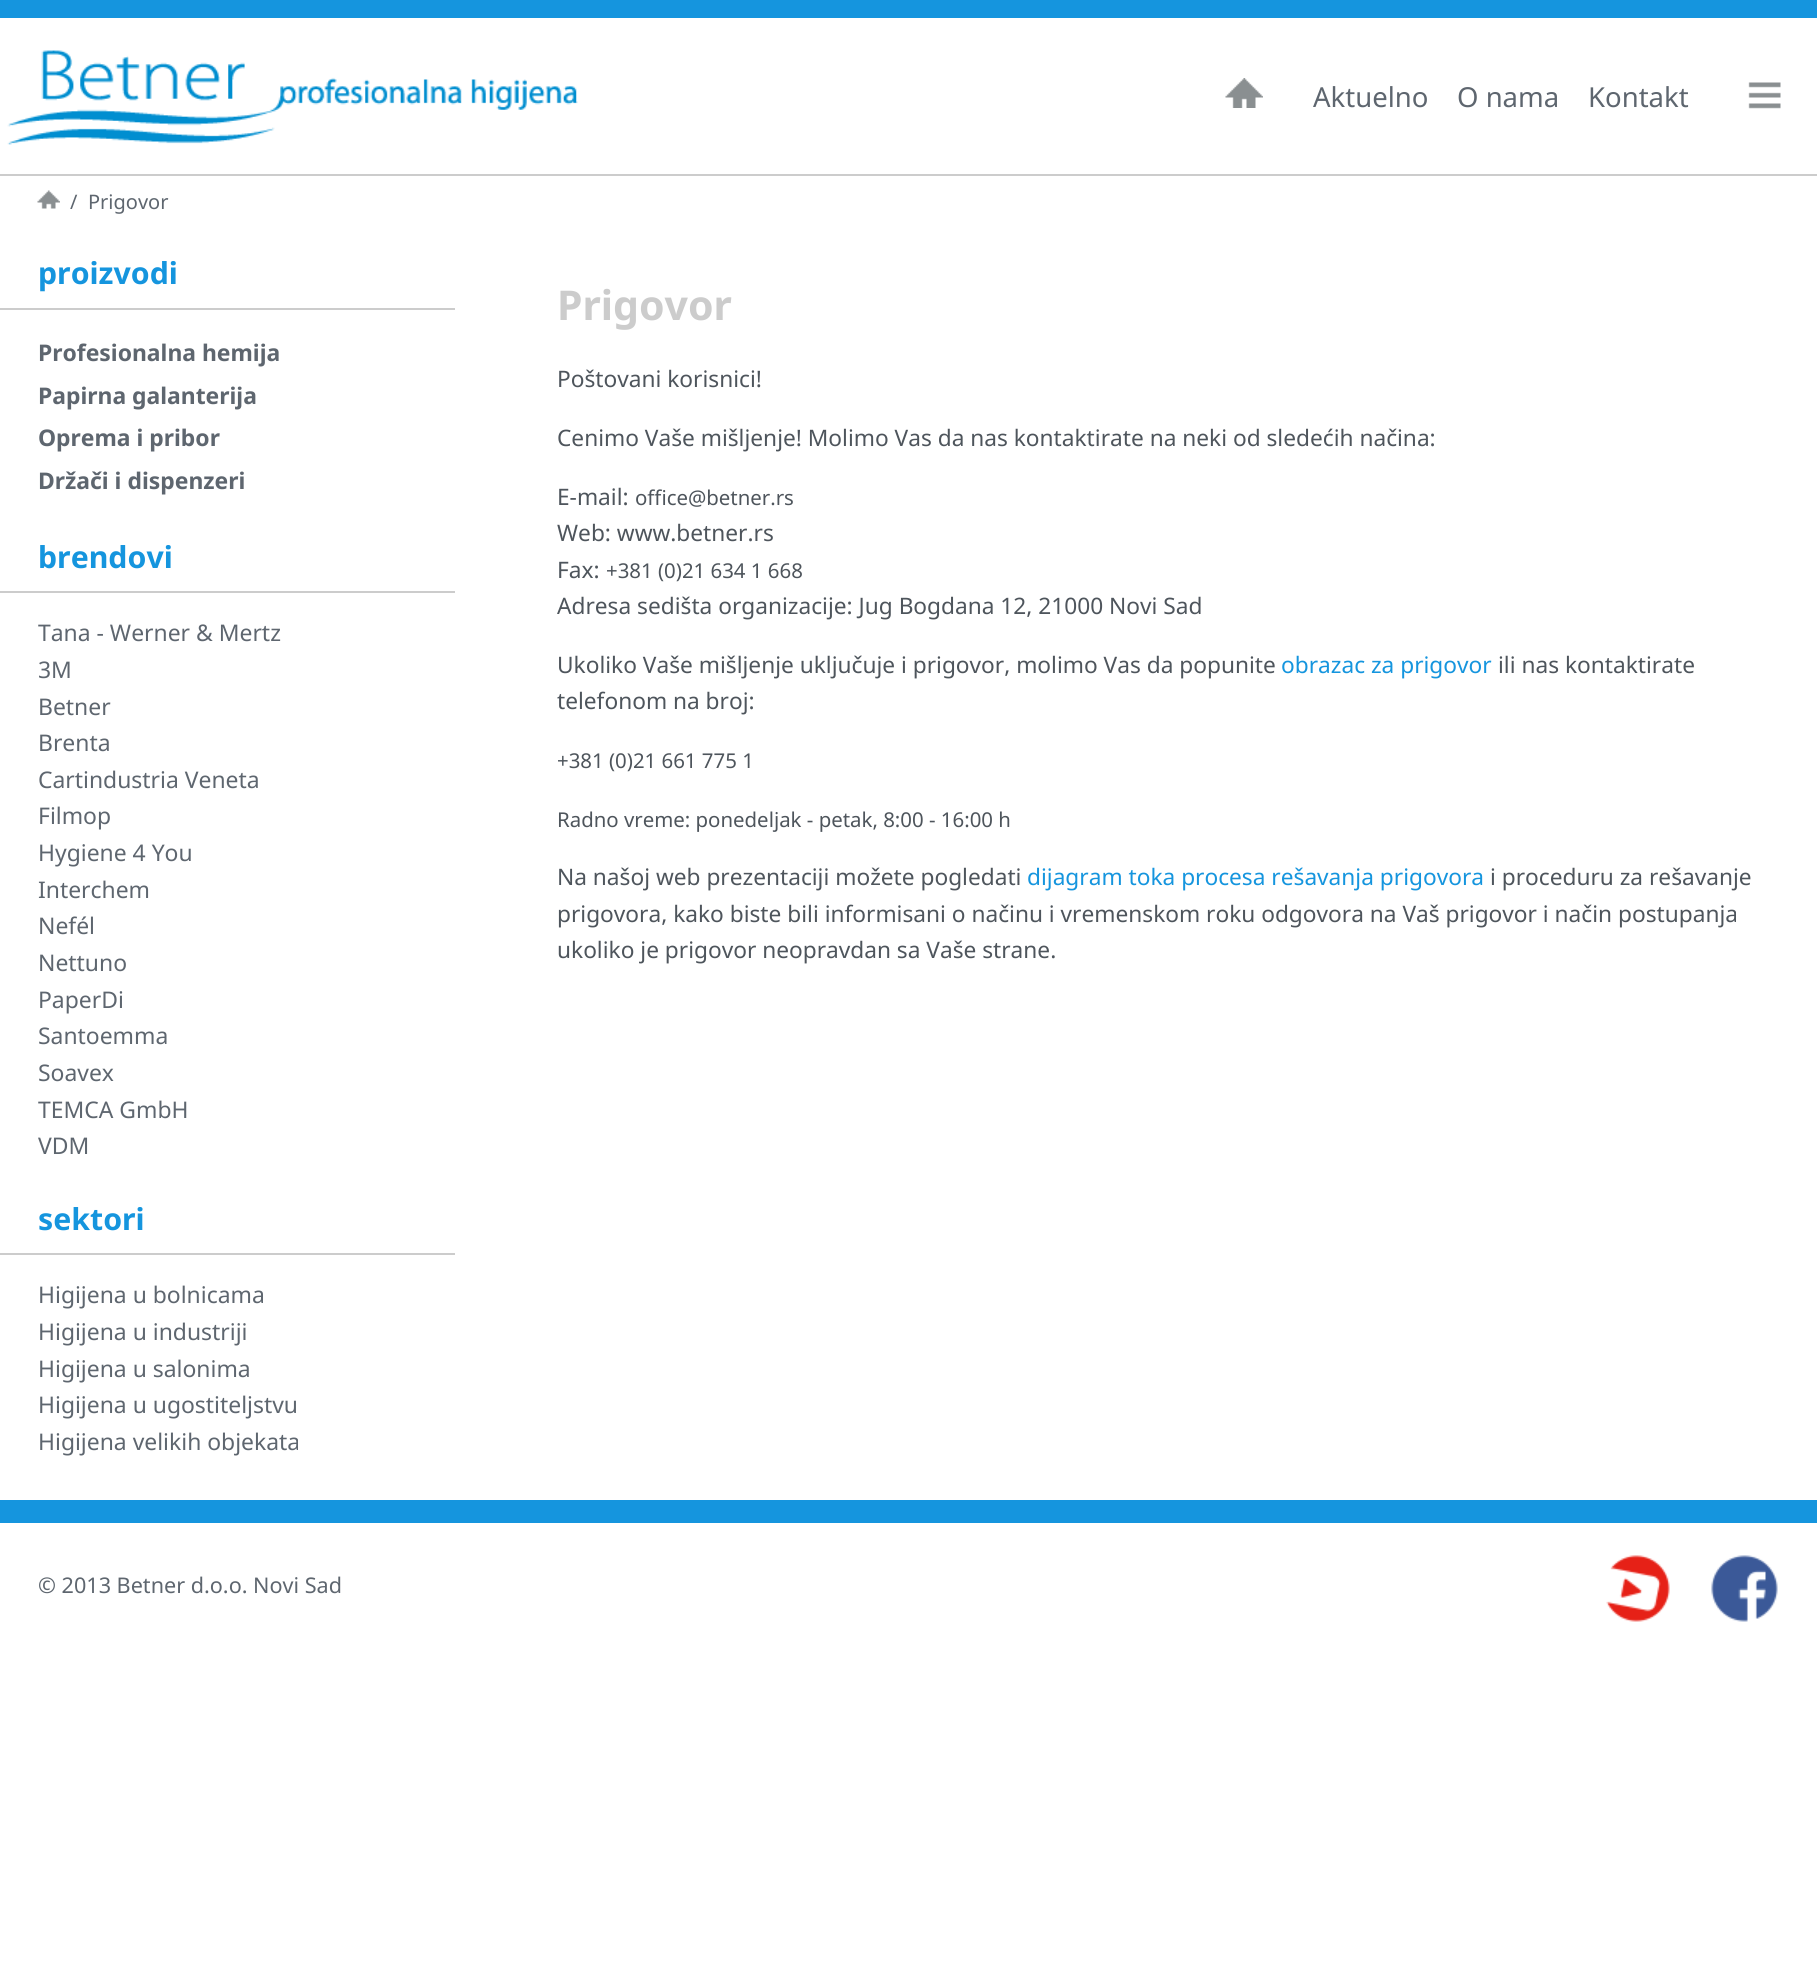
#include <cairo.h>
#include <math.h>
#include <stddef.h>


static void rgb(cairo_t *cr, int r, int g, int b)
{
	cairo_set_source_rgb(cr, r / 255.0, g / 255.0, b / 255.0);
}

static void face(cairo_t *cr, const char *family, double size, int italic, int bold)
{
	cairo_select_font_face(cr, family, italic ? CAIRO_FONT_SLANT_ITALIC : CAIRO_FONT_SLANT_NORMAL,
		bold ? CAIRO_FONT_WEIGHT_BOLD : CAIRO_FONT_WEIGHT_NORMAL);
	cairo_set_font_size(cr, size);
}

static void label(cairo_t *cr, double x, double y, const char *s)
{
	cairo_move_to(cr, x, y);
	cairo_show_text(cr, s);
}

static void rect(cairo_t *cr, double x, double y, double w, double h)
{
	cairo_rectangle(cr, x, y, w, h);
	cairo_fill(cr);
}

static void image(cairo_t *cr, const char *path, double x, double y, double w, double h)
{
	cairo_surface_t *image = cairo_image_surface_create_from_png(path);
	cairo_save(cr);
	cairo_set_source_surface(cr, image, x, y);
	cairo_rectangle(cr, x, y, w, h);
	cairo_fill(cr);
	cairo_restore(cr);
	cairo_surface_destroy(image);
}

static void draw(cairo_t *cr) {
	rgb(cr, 255, 255, 255);
	cairo_paint(cr);
	rgb(cr, 21, 149, 222);
	rect(cr, 0, 0, 1817, 18);
	image(cr, "image0.png", 7, 50, 571, 95);
	image(cr, "image1.png", 1225, 78, 38, 30);
	face(cr, "Noto Sans", 27.5, 0, 0);
	rgb(cr, 94, 102, 111);
	label(cr, 1313, 107, "Aktuelno");
	label(cr, 1457, 107, "O nama");
	label(cr, 1588, 107, "Kontakt");
	image(cr, "image2.png", 1748, 82, 33, 27);
	rgb(cr, 204, 204, 204);
	rect(cr, 0, 174, 1817, 2);
	image(cr, "image3.png", 37, 190, 23, 19);
	face(cr, "Noto Sans", 20, 0, 0);
	rgb(cr, 94, 102, 111);
	label(cr, 70, 209, "/");
	label(cr, 88, 209, "Prigovor");
	rgb(cr, 204, 204, 204);
	rect(cr, 0, 308, 455, 2);
	face(cr, "Noto Sans", 30.25, 0, 1);
	rgb(cr, 21, 149, 222);
	label(cr, 38, 284, "proizvodi");
	face(cr, "Noto Sans", 22.9, 0, 1);
	rgb(cr, 94, 102, 111);
	label(cr, 38, 361, "Profesionalna hemija");
	label(cr, 38, 404, "Papirna galanterija");
	label(cr, 38, 446, "Oprema i pribor");
	label(cr, 38, 489, "Držači i dispenzeri");
	rgb(cr, 204, 204, 204);
	rect(cr, 0, 591, 455, 2);
	face(cr, "Noto Sans", 30.25, 0, 1);
	rgb(cr, 21, 149, 222);
	label(cr, 38, 568, "brendovi");
	face(cr, "Noto Sans", 22.9, 0, 0);
	rgb(cr, 94, 102, 111);
	label(cr, 38, 641, "Tana - Werner & Mertz");
	label(cr, 38, 678, "3M");
	label(cr, 38, 715, "Betner");
	label(cr, 38, 751, "Brenta");
	label(cr, 38, 788, "Cartindustria Veneta");
	label(cr, 38, 824, "Filmop");
	label(cr, 38, 861, "Hygiene 4 You");
	label(cr, 38, 898, "Interchem");
	label(cr, 38, 934, "Nefél");
	label(cr, 38, 971, "Nettuno");
	label(cr, 38, 1008, "PaperDi");
	label(cr, 38, 1044, "Santoemma");
	label(cr, 38, 1081, "Soavex");
	label(cr, 38, 1118, "TEMCA GmbH");
	label(cr, 38, 1154, "VDM");
	rgb(cr, 204, 204, 204);
	rect(cr, 0, 1253, 455, 2);
	face(cr, "Noto Sans", 30.25, 0, 1);
	rgb(cr, 21, 149, 222);
	label(cr, 38, 1230, "sektori");
	face(cr, "Noto Sans", 22.9, 0, 0);
	rgb(cr, 94, 102, 111);
	label(cr, 38, 1303, "Higijena u bolnicama");
	label(cr, 38, 1340, "Higijena u industriji");
	label(cr, 38, 1377, "Higijena u salonima");
	label(cr, 38, 1413, "Higijena u ugostiteljstvu");
	label(cr, 38, 1450, "Higijena velikih objekata");
	face(cr, "Noto Sans", 41, 0, 1);
	rgb(cr, 204, 204, 204);
	label(cr, 557, 320, "Prigovor");
	face(cr, "Noto Sans", 22.68, 0, 0);
	rgb(cr, 78, 85, 92);
	label(cr, 557, 387, "Poštovani korisnici!");
	label(cr, 557, 446, "Cenimo Vaše mišljenje! Molimo Vas da nas kontaktirate na neki od sledećih načina:");
	label(cr, 557, 505, "E-mail:");
	face(cr, "Noto Sans", 20.4, 0, 0);
	label(cr, 635, 505, "office@betner.rs");
	face(cr, "Noto Sans", 22.68, 0, 0);
	label(cr, 557, 541, "Web: www.betner.rs");
	label(cr, 557, 578, "Fax:");
	face(cr, "Noto Sans", 20.4, 0, 0);
	label(cr, 606, 578, "+381 (0)21 634 1 668");
	face(cr, "Noto Sans", 22.68, 0, 0);
	label(cr, 557, 614, "Adresa sedišta organizacije: Jug Bogdana 12, 21000 Novi Sad");
	label(cr, 557, 673, "Ukoliko Vaše mišljenje uključuje i prigovor, molimo Vas da popunite");
	rgb(cr, 21, 149, 222);
	label(cr, 1281, 673, "obrazac za prigovor");
	rgb(cr, 78, 85, 92);
	label(cr, 1498, 673, "ili nas kontaktirate");
	label(cr, 557, 709, "telefonom na broj:");
	face(cr, "Noto Sans", 20.4, 0, 0);
	label(cr, 557, 768, "+381 (0)21 661 775 1");
	label(cr, 557, 827, "Radno vreme: ponedeljak - petak, 8:00 - 16:00 h");
	face(cr, "Noto Sans", 22.68, 0, 0);
	label(cr, 557, 885, "Na našoj web prezentaciji možete pogledati");
	rgb(cr, 21, 149, 222);
	label(cr, 1027, 885, "dijagram toka procesa rešavanja prigovora");
	rgb(cr, 78, 85, 92);
	label(cr, 1490, 885, "i proceduru za rešavanje");
	label(cr, 557, 922, "prigovora, kako biste bili informisani o načinu i vremenskom roku odgovora na Vaš prigovor i način postupanja");
	label(cr, 557, 958, "ukoliko je prigovor neopravdan sa Vaše strane.");
	rgb(cr, 21, 149, 222);
	rect(cr, 0, 1500, 1817, 23);
	face(cr, "Noto Sans", 21.6, 0, 0);
	rgb(cr, 94, 102, 111);
	label(cr, 38, 1593, "© 2013 Betner d.o.o. Novi Sad");
	image(cr, "image4.png", 1606, 1555, 64, 67);
	image(cr, "image5.png", 1711, 1555, 67, 67);
}

int main(void) {
	cairo_surface_t *surface = cairo_image_surface_create(CAIRO_FORMAT_RGB24, 1817, 1963);
	cairo_t *cr = cairo_create(surface);
	cairo_font_options_t *options = cairo_font_options_create();
	cairo_font_options_set_hint_metrics(options, CAIRO_HINT_METRICS_OFF);
	cairo_font_options_set_hint_style(options, CAIRO_HINT_STYLE_NONE);
	cairo_set_font_options(cr, options);
	cairo_set_miter_limit(cr, 4);
	draw(cr);
	cairo_surface_write_to_png(surface, "render.png");
	cairo_font_options_destroy(options);
	cairo_destroy(cr);
	cairo_surface_destroy(surface);
	return 0;
}
